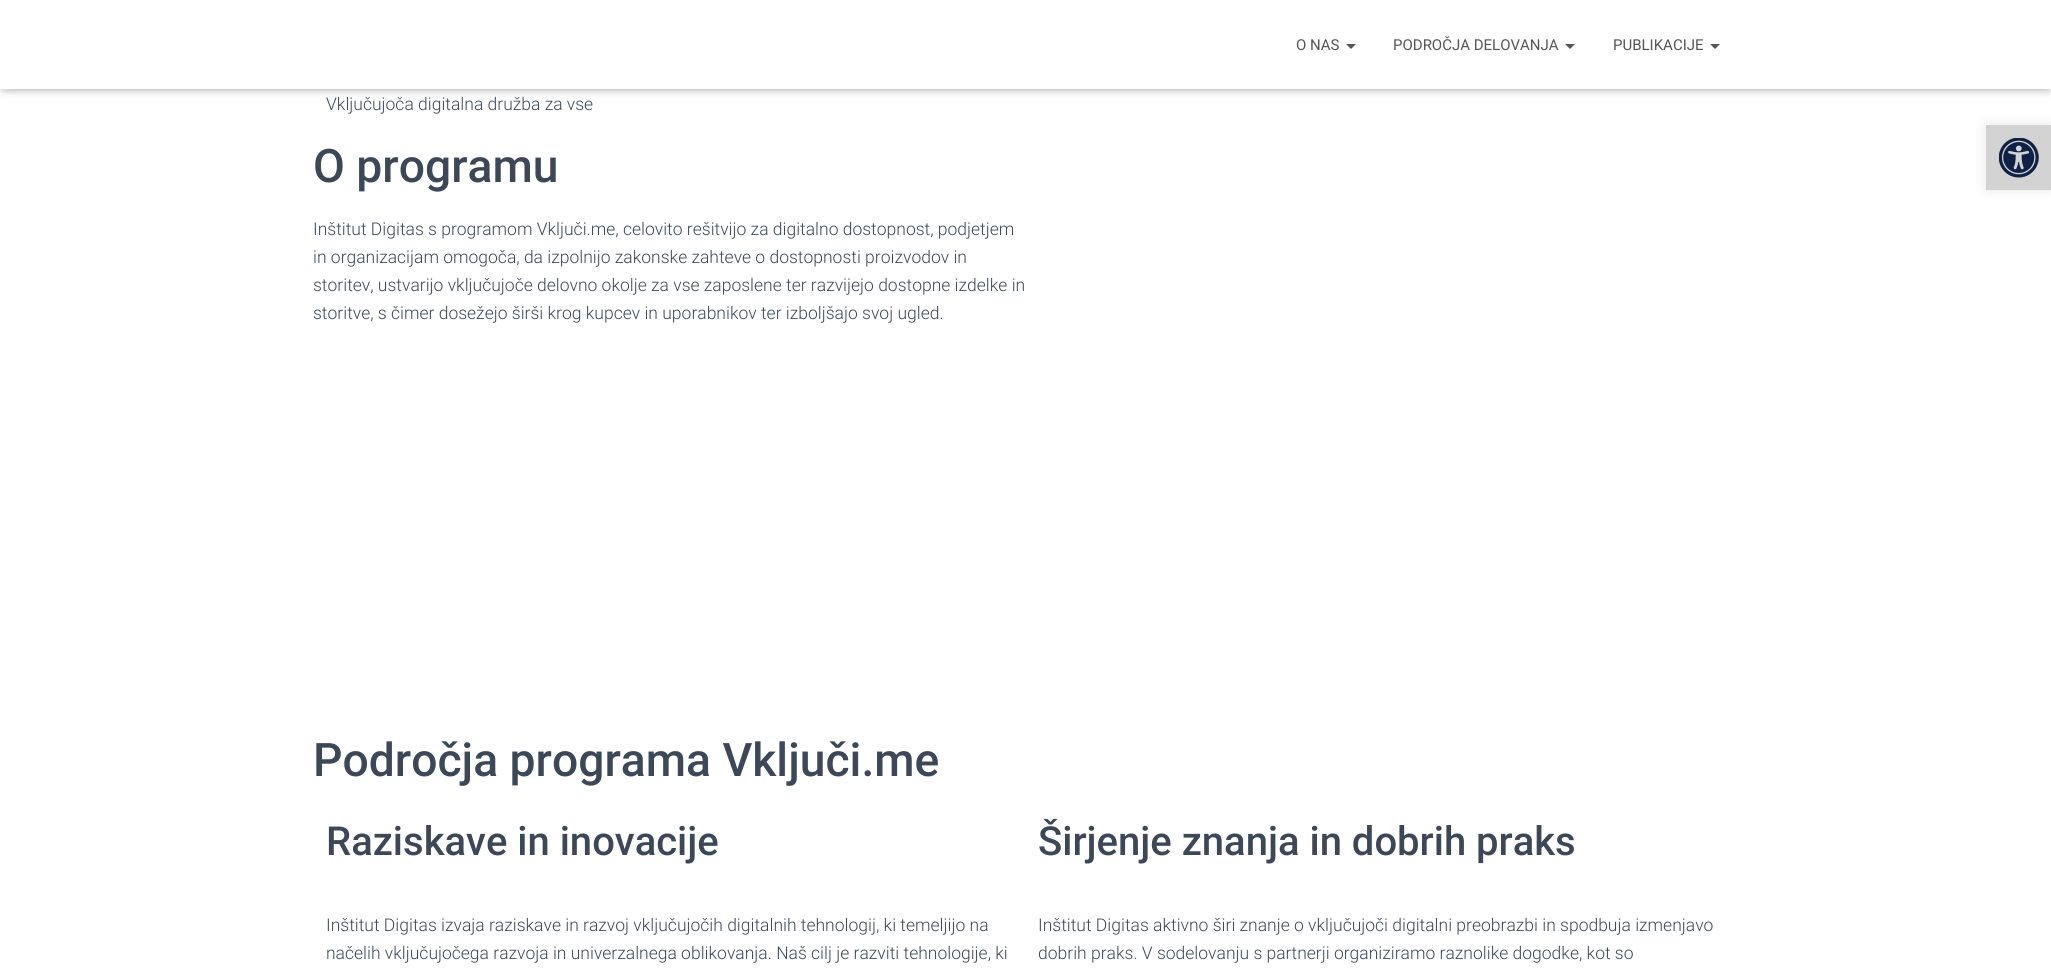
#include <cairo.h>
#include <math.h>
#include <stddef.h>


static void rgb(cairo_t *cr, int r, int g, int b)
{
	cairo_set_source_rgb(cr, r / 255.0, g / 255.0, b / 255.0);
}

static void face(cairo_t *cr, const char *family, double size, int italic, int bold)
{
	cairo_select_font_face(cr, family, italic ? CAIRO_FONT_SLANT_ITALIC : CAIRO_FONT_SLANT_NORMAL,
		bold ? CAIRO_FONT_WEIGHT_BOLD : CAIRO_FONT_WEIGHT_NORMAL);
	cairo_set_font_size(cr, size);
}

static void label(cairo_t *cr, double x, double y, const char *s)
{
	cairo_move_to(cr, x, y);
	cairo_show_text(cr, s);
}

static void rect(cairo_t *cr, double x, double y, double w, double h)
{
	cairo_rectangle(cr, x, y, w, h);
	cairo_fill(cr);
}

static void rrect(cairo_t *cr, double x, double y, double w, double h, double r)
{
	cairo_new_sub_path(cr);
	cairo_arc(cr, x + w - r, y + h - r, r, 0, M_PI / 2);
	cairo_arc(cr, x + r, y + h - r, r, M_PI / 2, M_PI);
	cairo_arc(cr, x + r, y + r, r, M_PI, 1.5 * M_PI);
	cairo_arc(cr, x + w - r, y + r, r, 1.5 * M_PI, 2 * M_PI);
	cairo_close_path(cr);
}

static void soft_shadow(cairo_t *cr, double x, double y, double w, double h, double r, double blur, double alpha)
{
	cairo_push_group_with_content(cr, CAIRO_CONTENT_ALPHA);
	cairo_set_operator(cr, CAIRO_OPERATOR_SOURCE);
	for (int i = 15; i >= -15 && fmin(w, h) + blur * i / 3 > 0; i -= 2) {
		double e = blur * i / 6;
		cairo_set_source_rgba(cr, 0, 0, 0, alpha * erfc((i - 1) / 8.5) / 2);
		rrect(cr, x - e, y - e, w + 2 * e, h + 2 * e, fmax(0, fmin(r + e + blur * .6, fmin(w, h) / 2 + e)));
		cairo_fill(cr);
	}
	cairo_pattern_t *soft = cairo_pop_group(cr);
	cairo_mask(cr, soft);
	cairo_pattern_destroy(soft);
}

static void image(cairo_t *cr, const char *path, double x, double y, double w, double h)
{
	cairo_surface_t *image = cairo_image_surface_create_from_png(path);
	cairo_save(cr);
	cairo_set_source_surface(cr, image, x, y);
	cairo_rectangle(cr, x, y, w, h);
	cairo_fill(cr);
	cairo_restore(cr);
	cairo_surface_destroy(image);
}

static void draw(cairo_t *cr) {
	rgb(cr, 255, 255, 255);
	cairo_paint(cr);
	rgb(cr, 0, 0, 0);
	soft_shadow(cr, 3, 8, 2046, 83, 0, 3, 0.1);
	soft_shadow(cr, 0, 1, 2051, 89, 0, 6, 0.12);
	soft_shadow(cr, 8, 9, 2036, 74, 0, 6, 0.42);
	rgb(cr, 255, 255, 255);
	rect(cr, 0, 0, 2051, 89);
	face(cr, "Roboto", 15, 0, 0);
	rgb(cr, 85, 85, 85);
	label(cr, 1296, 50, "O NAS");
	cairo_new_path(cr);
	cairo_move_to(cr, 1346, 44);
	cairo_line_to(cr, 1356, 44);
	cairo_line_to(cr, 1351, 49);
	cairo_close_path(cr);
	cairo_fill(cr);
	label(cr, 1393, 50, "PODROČJA DELOVANJA");
	cairo_new_path(cr);
	cairo_move_to(cr, 1565, 44);
	cairo_line_to(cr, 1575, 44);
	cairo_line_to(cr, 1570, 49);
	cairo_close_path(cr);
	cairo_fill(cr);
	label(cr, 1613, 50, "PUBLIKACIJE");
	cairo_new_path(cr);
	cairo_move_to(cr, 1710, 44);
	cairo_line_to(cr, 1720, 44);
	cairo_line_to(cr, 1715, 49);
	cairo_close_path(cr);
	cairo_fill(cr);
	face(cr, "Roboto Light", 17.5, 0, 0);
	rgb(cr, 60, 72, 88);
	label(cr, 326, 110, "Vključujoča digitalna družba za vse");
	face(cr, "Roboto Medium", 46.25, 0, 0);
	label(cr, 313, 182, "O programu");
	face(cr, "Roboto Light", 17.5, 0, 0);
	label(cr, 313, 235, "Inštitut Digitas s programom Vključi.me, celovito rešitvijo za digitalno dostopnost, podjetjem");
	label(cr, 313, 263, "in organizacijam omogoča, da izpolnijo zakonske zahteve o dostopnosti proizvodov in");
	label(cr, 313, 291, "storitev, ustvarijo vključujoče delovno okolje za vse zaposlene ter razvijejo dostopne izdelke in");
	label(cr, 313, 319, "storitve, s čimer dosežejo širši krog kupcev in uporabnikov ter izboljšajo svoj ugled.");
	face(cr, "Roboto Medium", 46.25, 0, 0);
	label(cr, 313, 776, "Področja programa Vključi.me");
	face(cr, "Roboto Medium", 40, 0, 0);
	label(cr, 326, 855, "Raziskave in inovacije");
	face(cr, "Roboto Light", 17.5, 0, 0);
	label(cr, 326, 931, "Inštitut Digitas izvaja raziskave in razvoj vključujočih digitalnih tehnologij, ki temeljijo na");
	label(cr, 326, 959, "načelih vključujočega razvoja in univerzalnega oblikovanja. Naš cilj je razviti tehnologije, ki");
	face(cr, "Roboto Medium", 40, 0, 0);
	label(cr, 1038, 855, "Širjenje znanja in dobrih praks");
	face(cr, "Roboto Light", 17.5, 0, 0);
	label(cr, 1038, 931, "Inštitut Digitas aktivno širi znanje o vključujoči digitalni preobrazbi in spodbuja izmenjavo");
	label(cr, 1038, 959, "dobrih praks. V sodelovanju s partnerji organiziramo raznolike dogodke, kot so");
	rgb(cr, 0, 0, 0);
	soft_shadow(cr, 1986, 125, 65, 65, 0, 6, 0.1);
	rgb(cr, 211, 211, 211);
	rect(cr, 1986, 125, 65, 65);
	image(cr, "image0.png", 1999, 138, 40, 40);
}

int main(void) {
	cairo_surface_t *surface = cairo_image_surface_create(CAIRO_FORMAT_RGB24, 2051, 970);
	cairo_t *cr = cairo_create(surface);
	cairo_font_options_t *options = cairo_font_options_create();
	cairo_font_options_set_hint_metrics(options, CAIRO_HINT_METRICS_OFF);
	cairo_font_options_set_hint_style(options, CAIRO_HINT_STYLE_NONE);
	cairo_set_font_options(cr, options);
	cairo_set_miter_limit(cr, 4);
	draw(cr);
	cairo_surface_write_to_png(surface, "render.png");
	cairo_font_options_destroy(options);
	cairo_destroy(cr);
	cairo_surface_destroy(surface);
	return 0;
}
